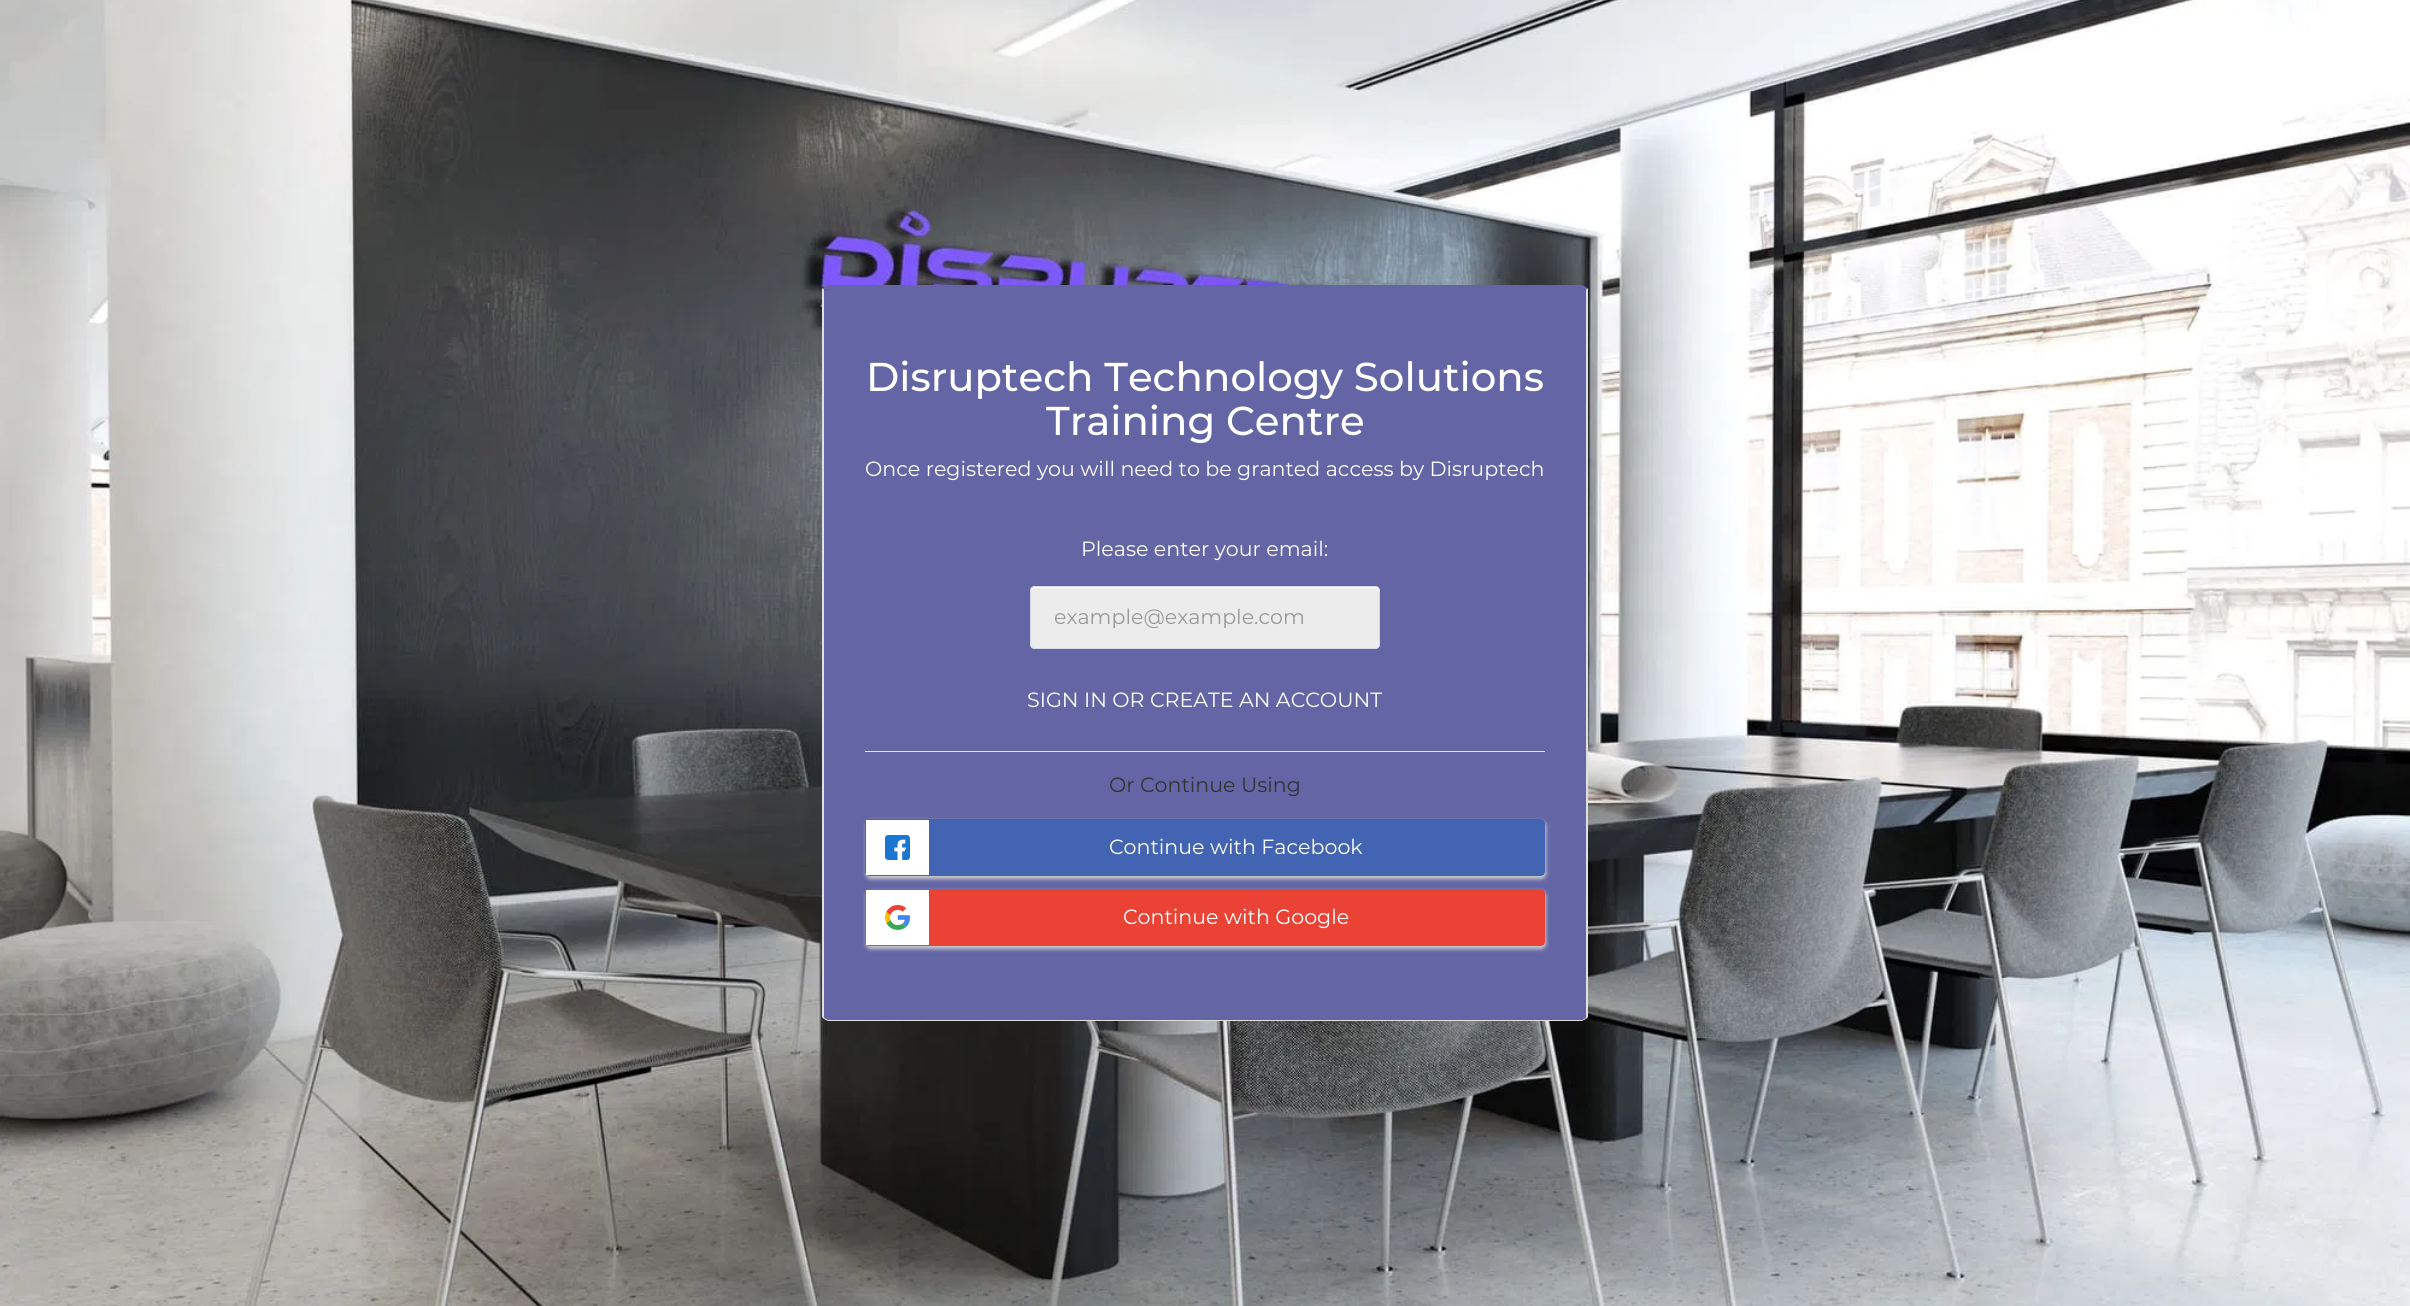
#include <cairo.h>
#include <math.h>
#include <stddef.h>


static void rgb(cairo_t *cr, int r, int g, int b)
{
	cairo_set_source_rgb(cr, r / 255.0, g / 255.0, b / 255.0);
}

static void face(cairo_t *cr, const char *family, double size, int italic, int bold)
{
	cairo_select_font_face(cr, family, italic ? CAIRO_FONT_SLANT_ITALIC : CAIRO_FONT_SLANT_NORMAL,
		bold ? CAIRO_FONT_WEIGHT_BOLD : CAIRO_FONT_WEIGHT_NORMAL);
	cairo_set_font_size(cr, size);
}

static void label(cairo_t *cr, double x, double y, const char *s)
{
	cairo_move_to(cr, x, y);
	cairo_show_text(cr, s);
}

static void rect(cairo_t *cr, double x, double y, double w, double h)
{
	cairo_rectangle(cr, x, y, w, h);
	cairo_fill(cr);
}

static void rrect(cairo_t *cr, double x, double y, double w, double h, double r)
{
	cairo_new_sub_path(cr);
	cairo_arc(cr, x + w - r, y + h - r, r, 0, M_PI / 2);
	cairo_arc(cr, x + r, y + h - r, r, M_PI / 2, M_PI);
	cairo_arc(cr, x + r, y + r, r, M_PI, 1.5 * M_PI);
	cairo_arc(cr, x + w - r, y + r, r, 1.5 * M_PI, 2 * M_PI);
	cairo_close_path(cr);
}

static void soft_shadow(cairo_t *cr, double x, double y, double w, double h, double r, double blur, double alpha)
{
	cairo_push_group_with_content(cr, CAIRO_CONTENT_ALPHA);
	cairo_set_operator(cr, CAIRO_OPERATOR_SOURCE);
	for (int i = 15; i >= -15 && fmin(w, h) + blur * i / 3 > 0; i -= 2) {
		double e = blur * i / 6;
		cairo_set_source_rgba(cr, 0, 0, 0, alpha * erfc((i - 1) / 8.5) / 2);
		rrect(cr, x - e, y - e, w + 2 * e, h + 2 * e, fmax(0, fmin(r + e + blur * .6, fmin(w, h) / 2 + e)));
		cairo_fill(cr);
	}
	cairo_pattern_t *soft = cairo_pop_group(cr);
	cairo_mask(cr, soft);
	cairo_pattern_destroy(soft);
}

static void image(cairo_t *cr, const char *path, double x, double y, double w, double h)
{
	cairo_surface_t *image = cairo_image_surface_create_from_png(path);
	cairo_save(cr);
	cairo_set_source_surface(cr, image, x, y);
	cairo_rectangle(cr, x, y, w, h);
	cairo_fill(cr);
	cairo_restore(cr);
	cairo_surface_destroy(image);
}

static void draw(cairo_t *cr) {
	rgb(cr, 255, 255, 255);
	cairo_paint(cr);
	image(cr, "image0.png", 0, 0, 2410, 1306);
	rgb(cr, 99, 101, 165);
	cairo_new_path(cr);
	cairo_move_to(cr, 829, 289);
	cairo_line_to(cr, 1581, 289);
	cairo_curve_to(cr, 1584, 289, 1586, 290, 1586, 291);
	cairo_line_to(cr, 1586, 1015);
	cairo_curve_to(cr, 1586, 1018, 1584, 1020, 1581, 1020);
	cairo_line_to(cr, 829, 1020);
	cairo_curve_to(cr, 826, 1020, 824, 1018, 824, 1015);
	cairo_line_to(cr, 824, 291);
	cairo_curve_to(cr, 824, 290, 826, 289, 829, 289);
	cairo_close_path(cr);
	cairo_fill(cr);
	cairo_new_path(cr);
	cairo_move_to(cr, 829, 285);
	cairo_curve_to(cr, 827, 285, 825, 286, 823, 288);
	cairo_line_to(cr, 824, 290);
	cairo_curve_to(cr, 825, 290, 827, 289, 829, 289);
	cairo_line_to(cr, 1581, 289);
	cairo_curve_to(cr, 1583, 289, 1585, 290, 1586, 290);
	cairo_line_to(cr, 1587, 288);
	cairo_curve_to(cr, 1585, 286, 1583, 285, 1581, 285);
	cairo_close_path(cr);
	cairo_fill(cr);
	rgb(cr, 224, 224, 224);
	cairo_new_path(cr);
	cairo_move_to(cr, 1588, 1017);
	cairo_line_to(cr, 1586, 1019);
	cairo_line_to(cr, 1585, 1018);
	cairo_curve_to(cr, 1586, 1018, 1586, 1016, 1586, 1015);
	cairo_line_to(cr, 1586, 290);
	cairo_line_to(cr, 1587, 288);
	cairo_line_to(cr, 1588, 289);
	cairo_close_path(cr);
	cairo_fill(cr);
	cairo_new_path(cr);
	cairo_move_to(cr, 1586, 1019);
	cairo_line_to(cr, 1582, 1021);
	cairo_line_to(cr, 829, 1021);
	cairo_curve_to(cr, 827, 1021, 826, 1020, 824, 1019);
	cairo_line_to(cr, 825, 1018);
	cairo_curve_to(cr, 826, 1019, 827, 1020, 829, 1020);
	cairo_line_to(cr, 1581, 1020);
	cairo_curve_to(cr, 1583, 1020, 1584, 1019, 1585, 1018);
	cairo_close_path(cr);
	cairo_fill(cr);
	cairo_new_path(cr);
	cairo_move_to(cr, 822, 289);
	cairo_line_to(cr, 823, 288);
	cairo_line_to(cr, 824, 290);
	cairo_line_to(cr, 824, 1015);
	cairo_curve_to(cr, 824, 1016, 824, 1018, 825, 1018);
	cairo_line_to(cr, 824, 1019);
	cairo_line_to(cr, 822, 1017);
	cairo_close_path(cr);
	cairo_fill(cr);
	face(cr, "Montserrat Medium", 40.25, 0, 0);
	rgb(cr, 255, 255, 255);
	label(cr, 866, 391, "Disruptech Technology Solutions");
	label(cr, 1046, 435, "Training Centre");
	face(cr, "Montserrat", 20.6, 0, 0);
	label(cr, 865, 476, "Once registered you will need to be granted access by Disruptech");
	label(cr, 1081, 556, "Please enter your email:");
	rrect(cr, 1030, 586, 350, 63, 5);
	cairo_fill(cr);
	rgb(cr, 236, 236, 236);
	cairo_new_path(cr);
	cairo_move_to(cr, 1035, 588);
	cairo_curve_to(cr, 1033, 588, 1031, 590, 1031, 592);
	cairo_line_to(cr, 1031, 644);
	cairo_curve_to(cr, 1031, 646, 1033, 648, 1035, 648);
	cairo_line_to(cr, 1375, 648);
	cairo_curve_to(cr, 1377, 648, 1379, 646, 1379, 644);
	cairo_line_to(cr, 1379, 592);
	cairo_curve_to(cr, 1379, 590, 1377, 588, 1375, 588);
	cairo_close_path(cr);
	cairo_fill(cr);
	rrect(cr, 1030.5, 586.5, 349, 62, 4.5);
	rgb(cr, 212, 215, 229);
	cairo_set_line_width(cr, 1);
	cairo_stroke(cr);
	rgb(cr, 153, 153, 153);
	label(cr, 1054, 624, "example@example.com");
	rgb(cr, 255, 255, 255);
	label(cr, 1027, 707, "SIGN IN OR CREATE AN ACCOUNT");
	rgb(cr, 226, 226, 226);
	rect(cr, 865, 751, 680, 1);
	rgb(cr, 51, 51, 51);
	label(cr, 1109, 792, "Or Continue Using");
	rgb(cr, 204, 204, 204);
	soft_shadow(cr, 866, 821, 680, 58, 5, 2, 1);
	rrect(cr, 865.5, 819.5, 679, 56, 4.5);
	rgb(cr, 66, 100, 178);
	cairo_stroke(cr);
	rgb(cr, 255, 255, 255);
	rect(cr, 866, 820, 63, 55);
	image(cr, "image1.png", 885, 835, 25, 25);
	rgb(cr, 66, 100, 178);
	rect(cr, 929, 820, 615, 55);
	rgb(cr, 255, 255, 255);
	label(cr, 1109, 854, "Continue with Facebook");
	rgb(cr, 204, 204, 204);
	soft_shadow(cr, 866, 891, 680, 58, 5, 2, 1);
	rrect(cr, 865.5, 889.5, 679, 56, 4.5);
	rgb(cr, 234, 67, 53);
	cairo_stroke(cr);
	rgb(cr, 255, 255, 255);
	rect(cr, 866, 890, 63, 55);
	image(cr, "image2.png", 885, 905, 25, 25);
	rgb(cr, 234, 67, 53);
	rect(cr, 929, 890, 615, 55);
	rgb(cr, 255, 255, 255);
	label(cr, 1123, 924, "Continue with Google");
}

int main(void) {
	cairo_surface_t *surface = cairo_image_surface_create(CAIRO_FORMAT_RGB24, 2410, 1306);
	cairo_t *cr = cairo_create(surface);
	cairo_font_options_t *options = cairo_font_options_create();
	cairo_font_options_set_hint_metrics(options, CAIRO_HINT_METRICS_OFF);
	cairo_font_options_set_hint_style(options, CAIRO_HINT_STYLE_NONE);
	cairo_set_font_options(cr, options);
	cairo_set_miter_limit(cr, 4);
	draw(cr);
	cairo_surface_write_to_png(surface, "render.png");
	cairo_font_options_destroy(options);
	cairo_destroy(cr);
	cairo_surface_destroy(surface);
	return 0;
}
